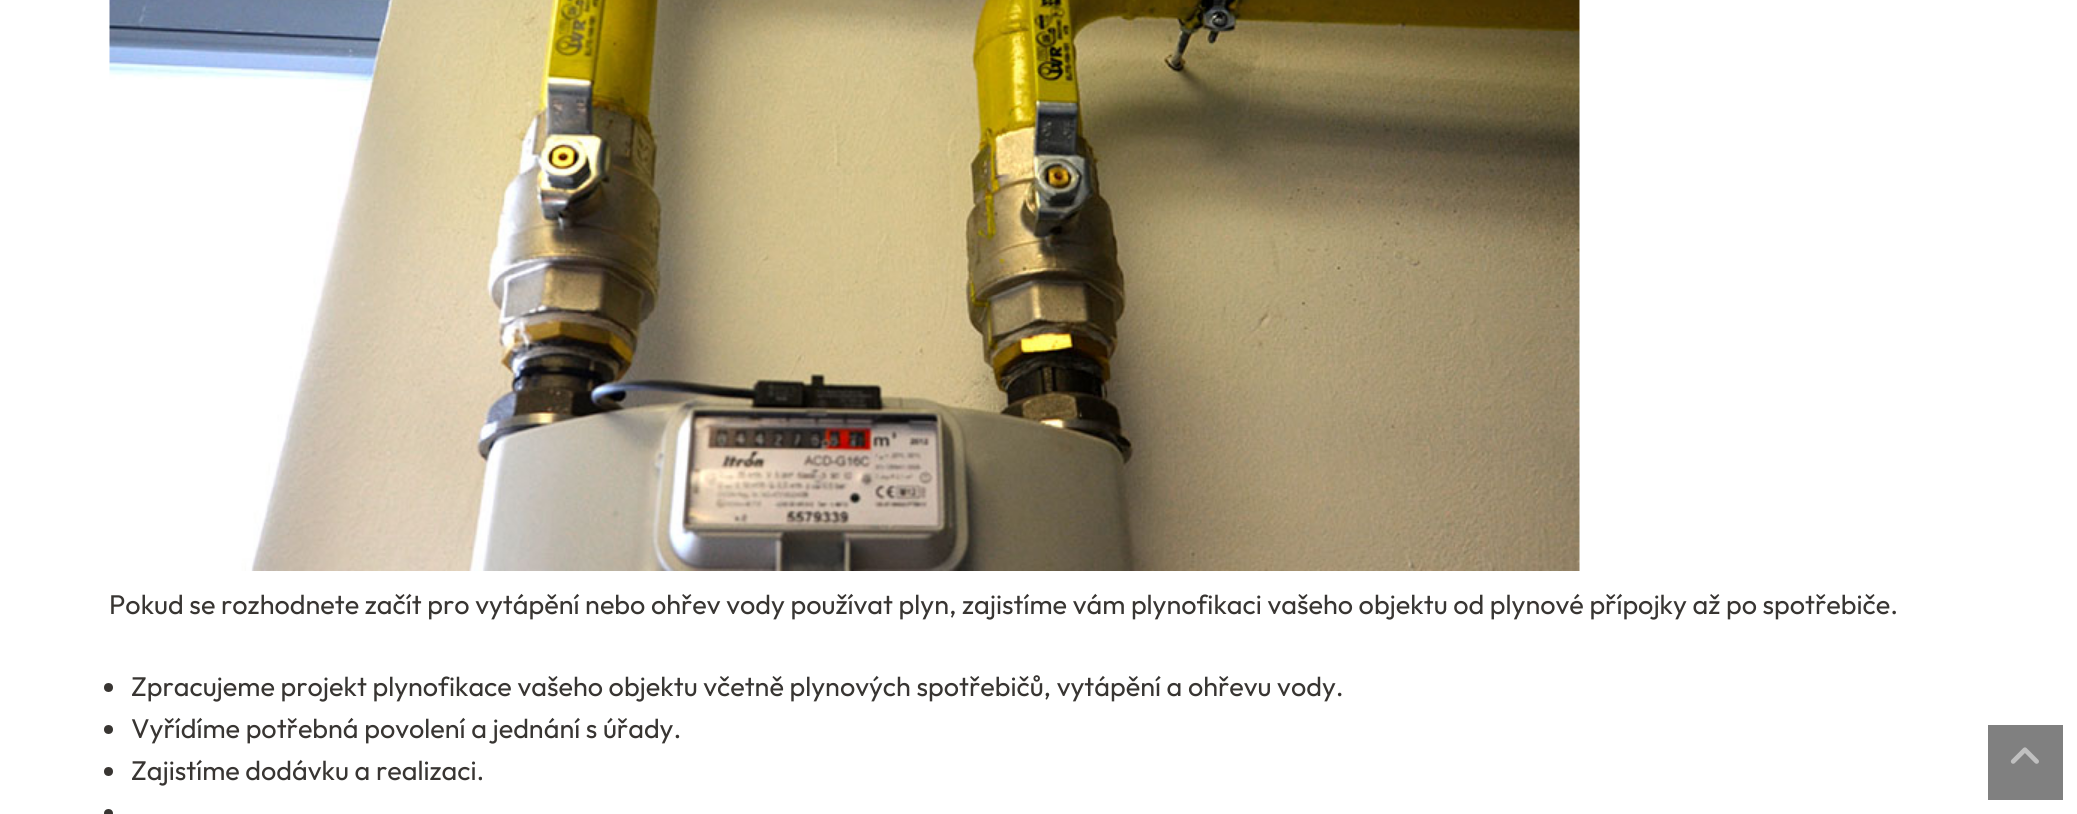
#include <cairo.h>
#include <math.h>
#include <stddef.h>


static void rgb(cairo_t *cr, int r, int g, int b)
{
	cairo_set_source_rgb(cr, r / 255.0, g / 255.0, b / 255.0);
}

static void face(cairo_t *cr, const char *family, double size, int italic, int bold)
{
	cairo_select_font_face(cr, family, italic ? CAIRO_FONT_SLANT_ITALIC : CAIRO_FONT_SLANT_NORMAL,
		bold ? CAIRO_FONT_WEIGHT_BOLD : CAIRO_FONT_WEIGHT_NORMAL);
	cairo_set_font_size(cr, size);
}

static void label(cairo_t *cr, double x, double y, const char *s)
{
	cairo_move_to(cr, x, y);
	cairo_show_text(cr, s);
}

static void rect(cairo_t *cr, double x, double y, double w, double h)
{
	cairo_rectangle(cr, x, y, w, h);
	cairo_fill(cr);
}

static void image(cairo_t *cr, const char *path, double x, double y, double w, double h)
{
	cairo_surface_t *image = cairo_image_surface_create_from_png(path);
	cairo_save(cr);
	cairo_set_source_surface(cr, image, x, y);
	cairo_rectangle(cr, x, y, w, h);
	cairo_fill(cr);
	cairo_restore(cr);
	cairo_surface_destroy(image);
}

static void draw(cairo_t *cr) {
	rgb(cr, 255, 255, 255);
	cairo_paint(cr);
	image(cr, "image0.png", 109, 0, 1471, 571);
	face(cr, "Outfit", 27, 0, 0);
	rgb(cr, 56, 53, 50);
	label(cr, 109, 614, "Pokud se rozhodnete začít pro vytápění nebo ohřev vody používat plyn, zajistíme vám plynofikaci vašeho objektu od plynové přípojky až po spotřebiče.");
	cairo_new_path(cr);
	cairo_arc(cr, 108.5, 687.5, 4.5, 0, 2 * M_PI);
	cairo_fill(cr);
	label(cr, 131, 696, "Zpracujeme projekt plynofikace vašeho objektu včetně plynových spotřebičů, vytápění a ohřevu vody.");
	cairo_new_path(cr);
	cairo_arc(cr, 108.5, 729.5, 4.5, 0, 2 * M_PI);
	cairo_fill(cr);
	label(cr, 131, 738, "Vyřídíme potřebná povolení a jednání s úřady.");
	cairo_new_path(cr);
	cairo_arc(cr, 108.5, 771.5, 4.5, 0, 2 * M_PI);
	cairo_fill(cr);
	label(cr, 131, 780, "Zajistíme dodávku a realizaci.");
	cairo_new_path(cr);
	cairo_arc(cr, 108.5, 813.5, 4.5, 0, 2 * M_PI);
	cairo_fill(cr);
	rgb(cr, 128, 128, 128);
	rect(cr, 1988, 725, 75, 75);
	image(cr, "image1.png", 2010, 747, 29, 17);
}

int main(void) {
	cairo_surface_t *surface = cairo_image_surface_create(CAIRO_FORMAT_RGB24, 2077, 814);
	cairo_t *cr = cairo_create(surface);
	cairo_font_options_t *options = cairo_font_options_create();
	cairo_font_options_set_hint_metrics(options, CAIRO_HINT_METRICS_OFF);
	cairo_font_options_set_hint_style(options, CAIRO_HINT_STYLE_NONE);
	cairo_set_font_options(cr, options);
	cairo_set_miter_limit(cr, 4);
	draw(cr);
	cairo_surface_write_to_png(surface, "render.png");
	cairo_font_options_destroy(options);
	cairo_destroy(cr);
	cairo_surface_destroy(surface);
	return 0;
}
